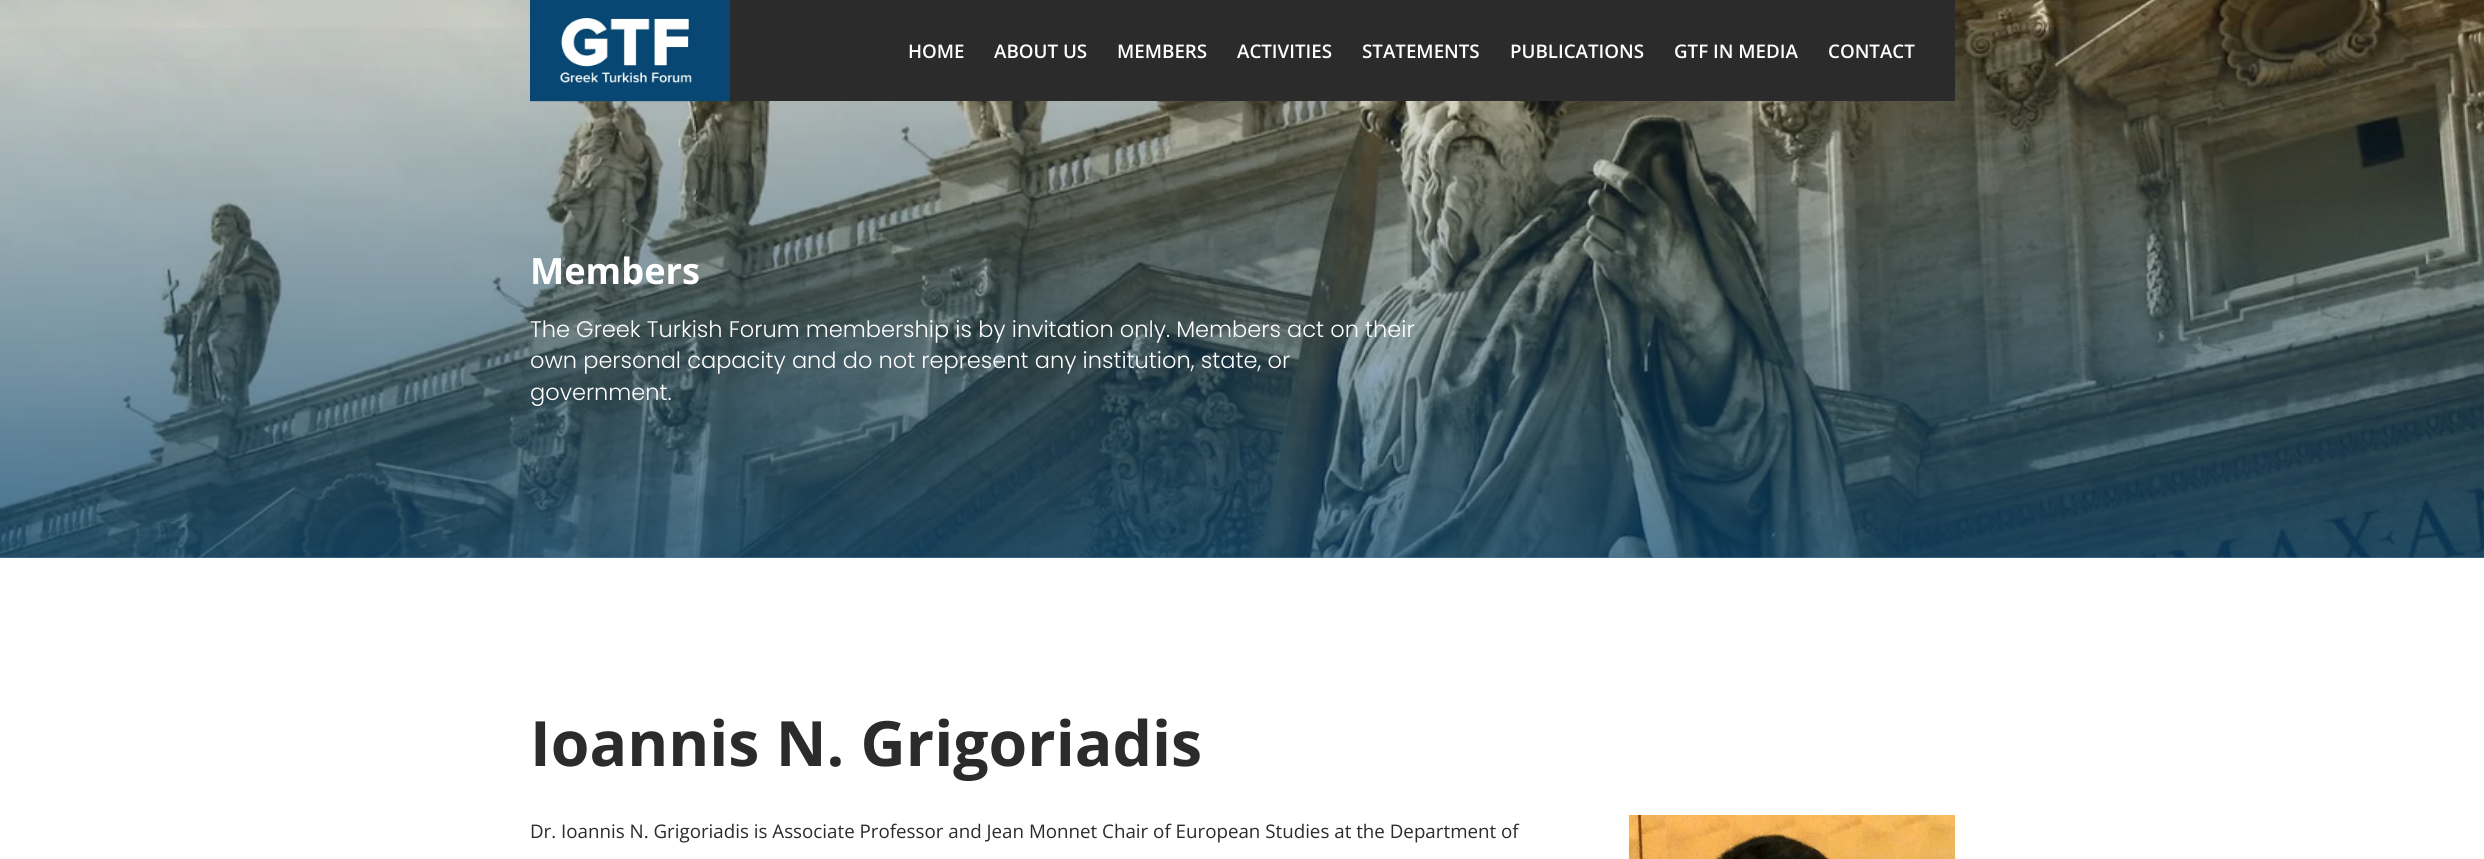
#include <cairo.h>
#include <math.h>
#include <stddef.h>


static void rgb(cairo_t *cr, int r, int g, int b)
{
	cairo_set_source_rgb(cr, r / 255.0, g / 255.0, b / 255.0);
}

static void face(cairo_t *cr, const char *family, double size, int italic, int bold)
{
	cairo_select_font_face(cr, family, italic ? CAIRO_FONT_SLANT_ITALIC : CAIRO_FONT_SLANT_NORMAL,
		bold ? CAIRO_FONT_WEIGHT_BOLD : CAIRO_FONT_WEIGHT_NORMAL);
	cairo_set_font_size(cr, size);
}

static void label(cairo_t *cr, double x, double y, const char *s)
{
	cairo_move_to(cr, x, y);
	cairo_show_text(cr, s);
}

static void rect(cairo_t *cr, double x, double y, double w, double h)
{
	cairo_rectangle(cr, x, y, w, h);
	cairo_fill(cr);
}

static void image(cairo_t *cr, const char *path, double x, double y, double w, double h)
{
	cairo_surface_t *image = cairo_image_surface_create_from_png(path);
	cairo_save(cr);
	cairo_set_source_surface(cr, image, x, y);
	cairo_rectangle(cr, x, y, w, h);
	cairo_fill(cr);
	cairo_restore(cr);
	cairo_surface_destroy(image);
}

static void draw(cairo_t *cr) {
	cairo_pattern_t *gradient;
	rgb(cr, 255, 255, 255);
	cairo_paint(cr);
	image(cr, "image1.png", 0, 0, 2484, 558);
	gradient = cairo_pattern_create_linear(1243, 558, 1243, 0);
	cairo_pattern_add_color_stop_rgba(gradient, 0, 0.031, 0.278, 0.455, 0.7);
	cairo_pattern_add_color_stop_rgba(gradient, 0.98, 0.031, 0.278, 0.455, 0);
	cairo_set_source(cr, gradient);
	cairo_pattern_destroy(gradient);
	rect(cr, 0, 28, 2484, 530);
	rgb(cr, 43, 43, 43);
	rect(cr, 730, 0, 1225, 101);
	image(cr, "image0.png", 530, 0, 200, 102);
	face(cr, "Open Sans SemiBold", 18.75, 0, 0);
	rgb(cr, 255, 255, 255);
	label(cr, 908, 58, "HOME");
	label(cr, 994, 58, "ABOUT US");
	label(cr, 1117, 58, "MEMBERS");
	label(cr, 1237, 58, "ACTIVITIES");
	label(cr, 1362, 58, "STATEMENTS");
	label(cr, 1510, 58, "PUBLICATIONS");
	label(cr, 1674, 58, "GTF IN MEDIA");
	label(cr, 1828, 58, "CONTACT");
	face(cr, "Open Sans", 36.25, 0, 1);
	label(cr, 530, 284, "Members");
	face(cr, "Poppins Light", 22.5, 0, 0);
	label(cr, 530, 337, "The Greek Turkish Forum membership is by invitation only. Members act on their");
	label(cr, 530, 368, "own personal capacity and do not represent any institution, state, or");
	label(cr, 530, 400, "government.");
	face(cr, "Open Sans", 62.5, 0, 1);
	rgb(cr, 43, 43, 43);
	label(cr, 530, 766, "Ioannis N. Grigoriadis");
	face(cr, "Open Sans", 18.75, 0, 0);
	label(cr, 530, 838, "Dr. Ioannis N. Grigoriadis is Associate Professor and Jean Monnet Chair of European Studies at the Department of");
	image(cr, "image2.png", 1628, 815, 327, 44);
}

int main(void) {
	cairo_surface_t *surface = cairo_image_surface_create(CAIRO_FORMAT_RGB24, 2484, 859);
	cairo_t *cr = cairo_create(surface);
	cairo_font_options_t *options = cairo_font_options_create();
	cairo_font_options_set_hint_metrics(options, CAIRO_HINT_METRICS_OFF);
	cairo_font_options_set_hint_style(options, CAIRO_HINT_STYLE_NONE);
	cairo_set_font_options(cr, options);
	cairo_set_miter_limit(cr, 4);
	draw(cr);
	cairo_surface_write_to_png(surface, "render.png");
	cairo_font_options_destroy(options);
	cairo_destroy(cr);
	cairo_surface_destroy(surface);
	return 0;
}
